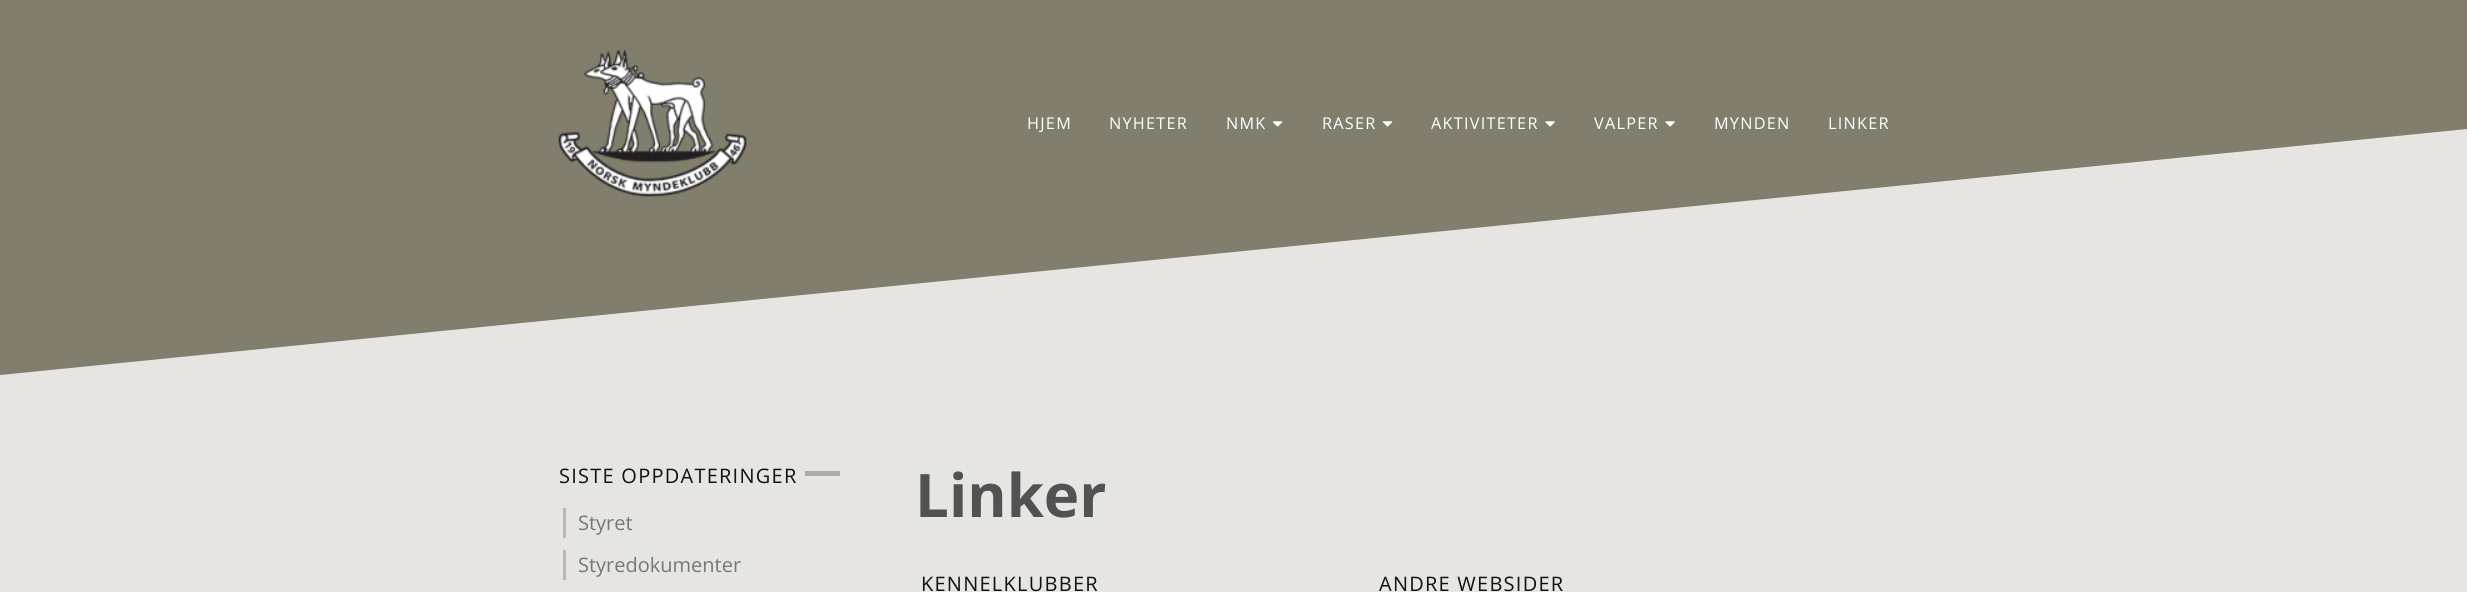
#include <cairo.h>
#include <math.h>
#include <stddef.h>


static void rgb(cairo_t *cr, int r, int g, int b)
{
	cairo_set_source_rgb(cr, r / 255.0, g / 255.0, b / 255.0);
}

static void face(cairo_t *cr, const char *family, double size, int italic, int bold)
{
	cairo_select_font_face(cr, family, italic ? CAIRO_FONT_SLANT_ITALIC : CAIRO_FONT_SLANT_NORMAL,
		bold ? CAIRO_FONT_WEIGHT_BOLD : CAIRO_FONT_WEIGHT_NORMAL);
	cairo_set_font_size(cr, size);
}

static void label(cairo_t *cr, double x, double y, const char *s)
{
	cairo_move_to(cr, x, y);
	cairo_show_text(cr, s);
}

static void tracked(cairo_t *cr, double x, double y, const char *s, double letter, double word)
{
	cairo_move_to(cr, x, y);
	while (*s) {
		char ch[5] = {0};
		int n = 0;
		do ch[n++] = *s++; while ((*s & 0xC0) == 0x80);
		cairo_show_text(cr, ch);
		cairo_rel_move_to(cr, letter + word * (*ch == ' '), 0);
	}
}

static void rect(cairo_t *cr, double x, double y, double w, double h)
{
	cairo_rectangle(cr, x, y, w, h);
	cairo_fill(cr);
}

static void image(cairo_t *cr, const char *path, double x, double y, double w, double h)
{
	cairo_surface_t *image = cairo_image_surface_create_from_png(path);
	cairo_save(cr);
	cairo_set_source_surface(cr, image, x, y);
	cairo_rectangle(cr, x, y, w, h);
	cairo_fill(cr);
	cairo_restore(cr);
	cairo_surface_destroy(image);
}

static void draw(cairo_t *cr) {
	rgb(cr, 130, 126, 109);
	cairo_paint(cr);
	rgb(cr, 230, 229, 226);
	cairo_new_path(cr);
	cairo_move_to(cr, 0, 375);
	cairo_line_to(cr, 2467, 129);
	cairo_line_to(cr, 2467, 375);
	cairo_close_path(cr);
	cairo_fill(cr);
	image(cr, "image0.png", 558, 50, 189, 147);
	face(cr, "Open Sans", 16.25, 0, 0);
	rgb(cr, 255, 255, 255);
	tracked(cr, 1027, 129, "HJEM", 1.25, 0);
	tracked(cr, 1109, 129, "NYHETER", 1.25, 0);
	tracked(cr, 1226, 129, "NMK", 1.25, 0);
	image(cr, "image1.png", 1272, 121, 11, 6);
	tracked(cr, 1322, 129, "RASER", 1.25, 0);
	image(cr, "image1.png", 1382, 121, 11, 6);
	tracked(cr, 1431, 129, "AKTIVITETER", 1.25, 0);
	image(cr, "image2.png", 1545, 121, 10, 6);
	tracked(cr, 1594, 129, "VALPER", 1.25, 0);
	image(cr, "image2.png", 1665, 121, 10, 6);
	tracked(cr, 1714, 129, "MYNDEN", 1.25, 0);
	tracked(cr, 1828, 129, "LINKER", 1.25, 0);
	rgb(cr, 230, 229, 226);
	rect(cr, 0, 375, 2467, 217);
	face(cr, "Open Sans", 20, 0, 0);
	rgb(cr, 17, 17, 17);
	tracked(cr, 559, 483, "SISTE OPPDATERINGER", 1.25, 0);
	rgb(cr, 173, 172, 170);
	rect(cr, 805, 471, 35, 5);
	rgb(cr, 184, 183, 181);
	rect(cr, 563, 508, 3, 30);
	rgb(cr, 119, 119, 119);
	label(cr, 578, 530, "Styret");
	rgb(cr, 184, 183, 181);
	rect(cr, 563, 550, 3, 30);
	rgb(cr, 119, 119, 119);
	label(cr, 578, 572, "Styredokumenter");
	face(cr, "Open Sans", 60, 0, 1);
	rgb(cr, 82, 82, 82);
	label(cr, 915, 517, "Linker");
	face(cr, "Open Sans", 20, 0, 0);
	rgb(cr, 17, 17, 17);
	tracked(cr, 921, 591, "KENNELKLUBBER", 1.25, 0);
	tracked(cr, 1379, 591, "ANDRE WEBSIDER", 1.25, 0);
}

int main(void) {
	cairo_surface_t *surface = cairo_image_surface_create(CAIRO_FORMAT_RGB24, 2467, 592);
	cairo_t *cr = cairo_create(surface);
	cairo_font_options_t *options = cairo_font_options_create();
	cairo_font_options_set_hint_metrics(options, CAIRO_HINT_METRICS_OFF);
	cairo_font_options_set_hint_style(options, CAIRO_HINT_STYLE_NONE);
	cairo_set_font_options(cr, options);
	cairo_set_miter_limit(cr, 4);
	draw(cr);
	cairo_surface_write_to_png(surface, "render.png");
	cairo_font_options_destroy(options);
	cairo_destroy(cr);
	cairo_surface_destroy(surface);
	return 0;
}
